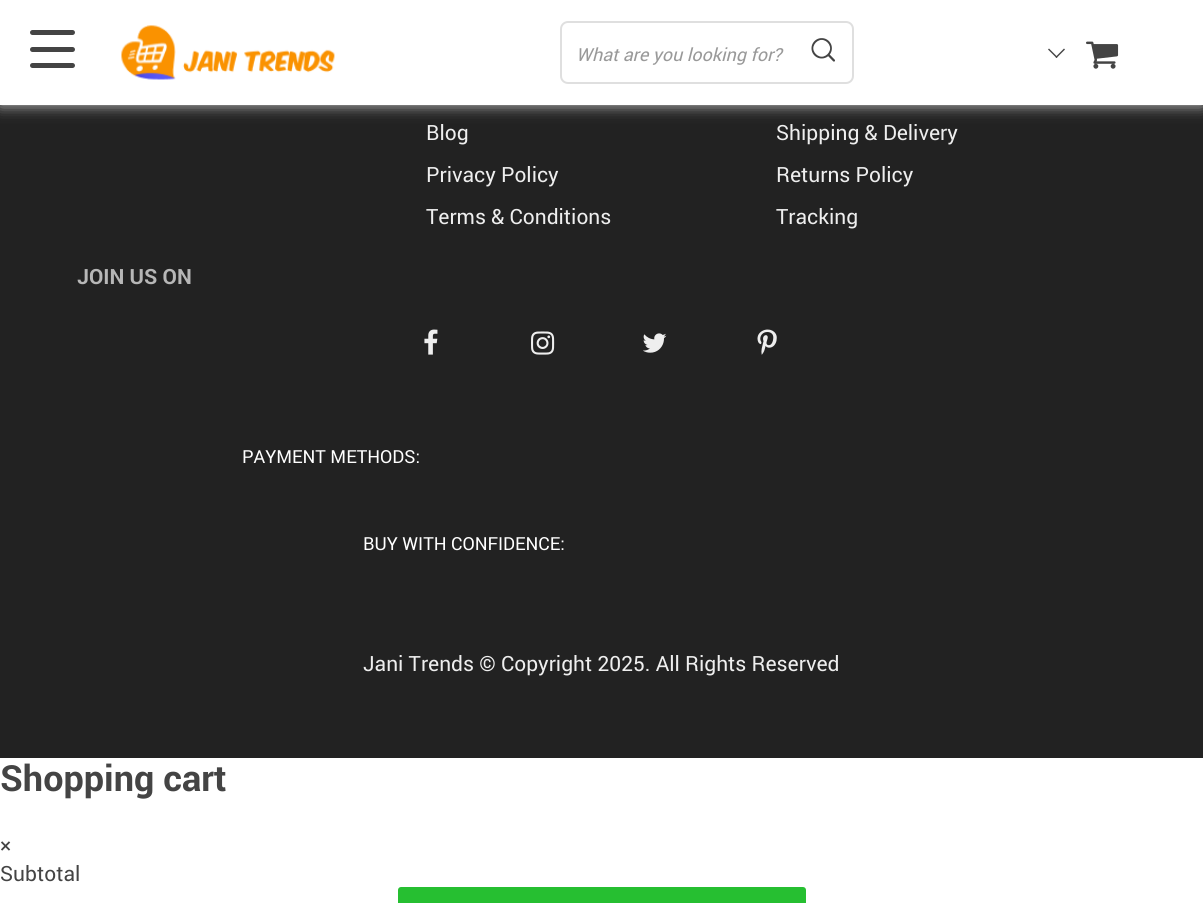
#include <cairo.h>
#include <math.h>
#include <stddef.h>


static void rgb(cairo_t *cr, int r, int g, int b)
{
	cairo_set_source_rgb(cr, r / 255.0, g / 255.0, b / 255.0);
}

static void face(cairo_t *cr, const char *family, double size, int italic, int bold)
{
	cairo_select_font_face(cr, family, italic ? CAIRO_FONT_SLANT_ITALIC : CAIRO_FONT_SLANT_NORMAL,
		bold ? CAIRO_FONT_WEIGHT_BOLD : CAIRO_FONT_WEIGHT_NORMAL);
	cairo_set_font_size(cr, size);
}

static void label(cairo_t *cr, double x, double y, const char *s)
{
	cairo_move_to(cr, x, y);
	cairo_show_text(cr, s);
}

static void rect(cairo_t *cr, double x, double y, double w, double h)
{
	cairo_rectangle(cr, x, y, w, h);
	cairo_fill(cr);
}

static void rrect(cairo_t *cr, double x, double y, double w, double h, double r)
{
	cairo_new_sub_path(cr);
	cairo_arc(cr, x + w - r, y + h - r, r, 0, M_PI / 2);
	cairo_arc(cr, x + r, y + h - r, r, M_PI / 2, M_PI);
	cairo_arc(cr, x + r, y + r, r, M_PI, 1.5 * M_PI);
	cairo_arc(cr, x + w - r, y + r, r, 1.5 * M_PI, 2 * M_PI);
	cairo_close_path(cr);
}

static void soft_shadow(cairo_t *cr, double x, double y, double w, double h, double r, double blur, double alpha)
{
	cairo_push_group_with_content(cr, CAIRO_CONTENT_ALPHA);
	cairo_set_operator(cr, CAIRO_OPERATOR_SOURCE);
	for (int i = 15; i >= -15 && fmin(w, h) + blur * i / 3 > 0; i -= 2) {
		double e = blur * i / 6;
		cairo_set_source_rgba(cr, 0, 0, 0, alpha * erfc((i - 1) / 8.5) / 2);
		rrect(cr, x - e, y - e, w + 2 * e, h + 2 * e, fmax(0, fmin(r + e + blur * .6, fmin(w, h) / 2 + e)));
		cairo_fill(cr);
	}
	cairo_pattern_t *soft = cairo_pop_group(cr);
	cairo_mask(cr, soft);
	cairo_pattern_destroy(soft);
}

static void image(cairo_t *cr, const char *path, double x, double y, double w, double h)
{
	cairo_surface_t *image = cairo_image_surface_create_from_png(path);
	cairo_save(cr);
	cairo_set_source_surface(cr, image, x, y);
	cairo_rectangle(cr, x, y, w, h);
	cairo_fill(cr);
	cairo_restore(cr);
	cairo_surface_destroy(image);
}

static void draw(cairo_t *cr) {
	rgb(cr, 255, 255, 255);
	cairo_paint(cr);
	rgb(cr, 34, 34, 34);
	rect(cr, 0, 105, 1203, 653);
	rgb(cr, 204, 204, 204);
	soft_shadow(cr, 0, 0, 1203, 105, 0, 7.5, 1);
	rgb(cr, 255, 255, 255);
	rect(cr, 0, 0, 1203, 105);
	rgb(cr, 68, 68, 68);
	rrect(cr, 30, 30, 45, 5, 2.5);
	cairo_fill(cr);
	rrect(cr, 30, 47, 45, 5, 2.5);
	cairo_fill(cr);
	rrect(cr, 30, 63, 45, 5, 2.5);
	cairo_fill(cr);
	image(cr, "image0.png", 121, 25, 214, 55);
	rrect(cr, 561, 22, 292, 61, 7);
	rgb(cr, 223, 223, 223);
	cairo_stroke(cr);
	face(cr, "Roboto", 18, 1, 0);
	rgb(cr, 153, 153, 153);
	label(cr, 576, 61, "What are you looking for?");
	image(cr, "image1.png", 811, 38, 24, 24);
	rgb(cr, 68, 68, 68);
	cairo_new_path(cr);
	cairo_move_to(cr, 1065, 49.5);
	cairo_line_to(cr, 1056.5, 58);
	cairo_line_to(cr, 1055.5, 57);
	cairo_line_to(cr, 1064, 48.5);
	cairo_close_path(cr);
	cairo_fill(cr);
	cairo_new_path(cr);
	cairo_move_to(cr, 1057.5, 57);
	cairo_line_to(cr, 1056.5, 58);
	cairo_line_to(cr, 1048, 49.5);
	cairo_line_to(cr, 1049, 48.5);
	cairo_close_path(cr);
	cairo_fill(cr);
	image(cr, "image2.png", 1086, 41, 33, 28);
	face(cr, "Roboto", 21, 0, 0);
	rgb(cr, 238, 238, 238);
	label(cr, 426, 140, "Blog");
	label(cr, 426, 182, "Privacy Policy");
	label(cr, 426, 224, "Terms & Conditions");
	label(cr, 776, 140, "Shipping & Delivery");
	label(cr, 776, 182, "Returns Policy");
	label(cr, 776, 224, "Tracking");
	face(cr, "Roboto", 21, 0, 1);
	rgb(cr, 183, 183, 183);
	label(cr, 77, 284, "JOIN US ON");
	image(cr, "image3.png", 424, 329, 14, 26);
	image(cr, "image4.png", 531, 331, 24, 24);
	image(cr, "image5.png", 643, 333, 24, 20);
	image(cr, "image6.png", 757, 329, 20, 26);
	face(cr, "Roboto", 18, 0, 0);
	rgb(cr, 255, 255, 255);
	label(cr, 242, 463, "PAYMENT METHODS:");
	label(cr, 363, 550, "BUY WITH CONFIDENCE:");
	face(cr, "Roboto", 21, 0, 0);
	rgb(cr, 238, 238, 238);
	label(cr, 363, 671, "Jani Trends © Copyright 2025. All Rights Reserved");
	face(cr, "Roboto", 36, 0, 1);
	rgb(cr, 68, 68, 68);
	label(cr, 0, 791, "Shopping cart");
	face(cr, "Roboto", 21, 0, 0);
	label(cr, 0, 853, "×");
	label(cr, 0, 881, "Subtotal");
	rgb(cr, 38, 191, 49);
	rrect(cr, 398, 887, 408, 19, 3);
	cairo_fill(cr);
}

int main(void) {
	cairo_surface_t *surface = cairo_image_surface_create(CAIRO_FORMAT_RGB24, 1203, 903);
	cairo_t *cr = cairo_create(surface);
	cairo_font_options_t *options = cairo_font_options_create();
	cairo_font_options_set_hint_metrics(options, CAIRO_HINT_METRICS_OFF);
	cairo_font_options_set_hint_style(options, CAIRO_HINT_STYLE_NONE);
	cairo_set_font_options(cr, options);
	cairo_set_miter_limit(cr, 4);
	draw(cr);
	cairo_surface_write_to_png(surface, "render.png");
	cairo_font_options_destroy(options);
	cairo_destroy(cr);
	cairo_surface_destroy(surface);
	return 0;
}
